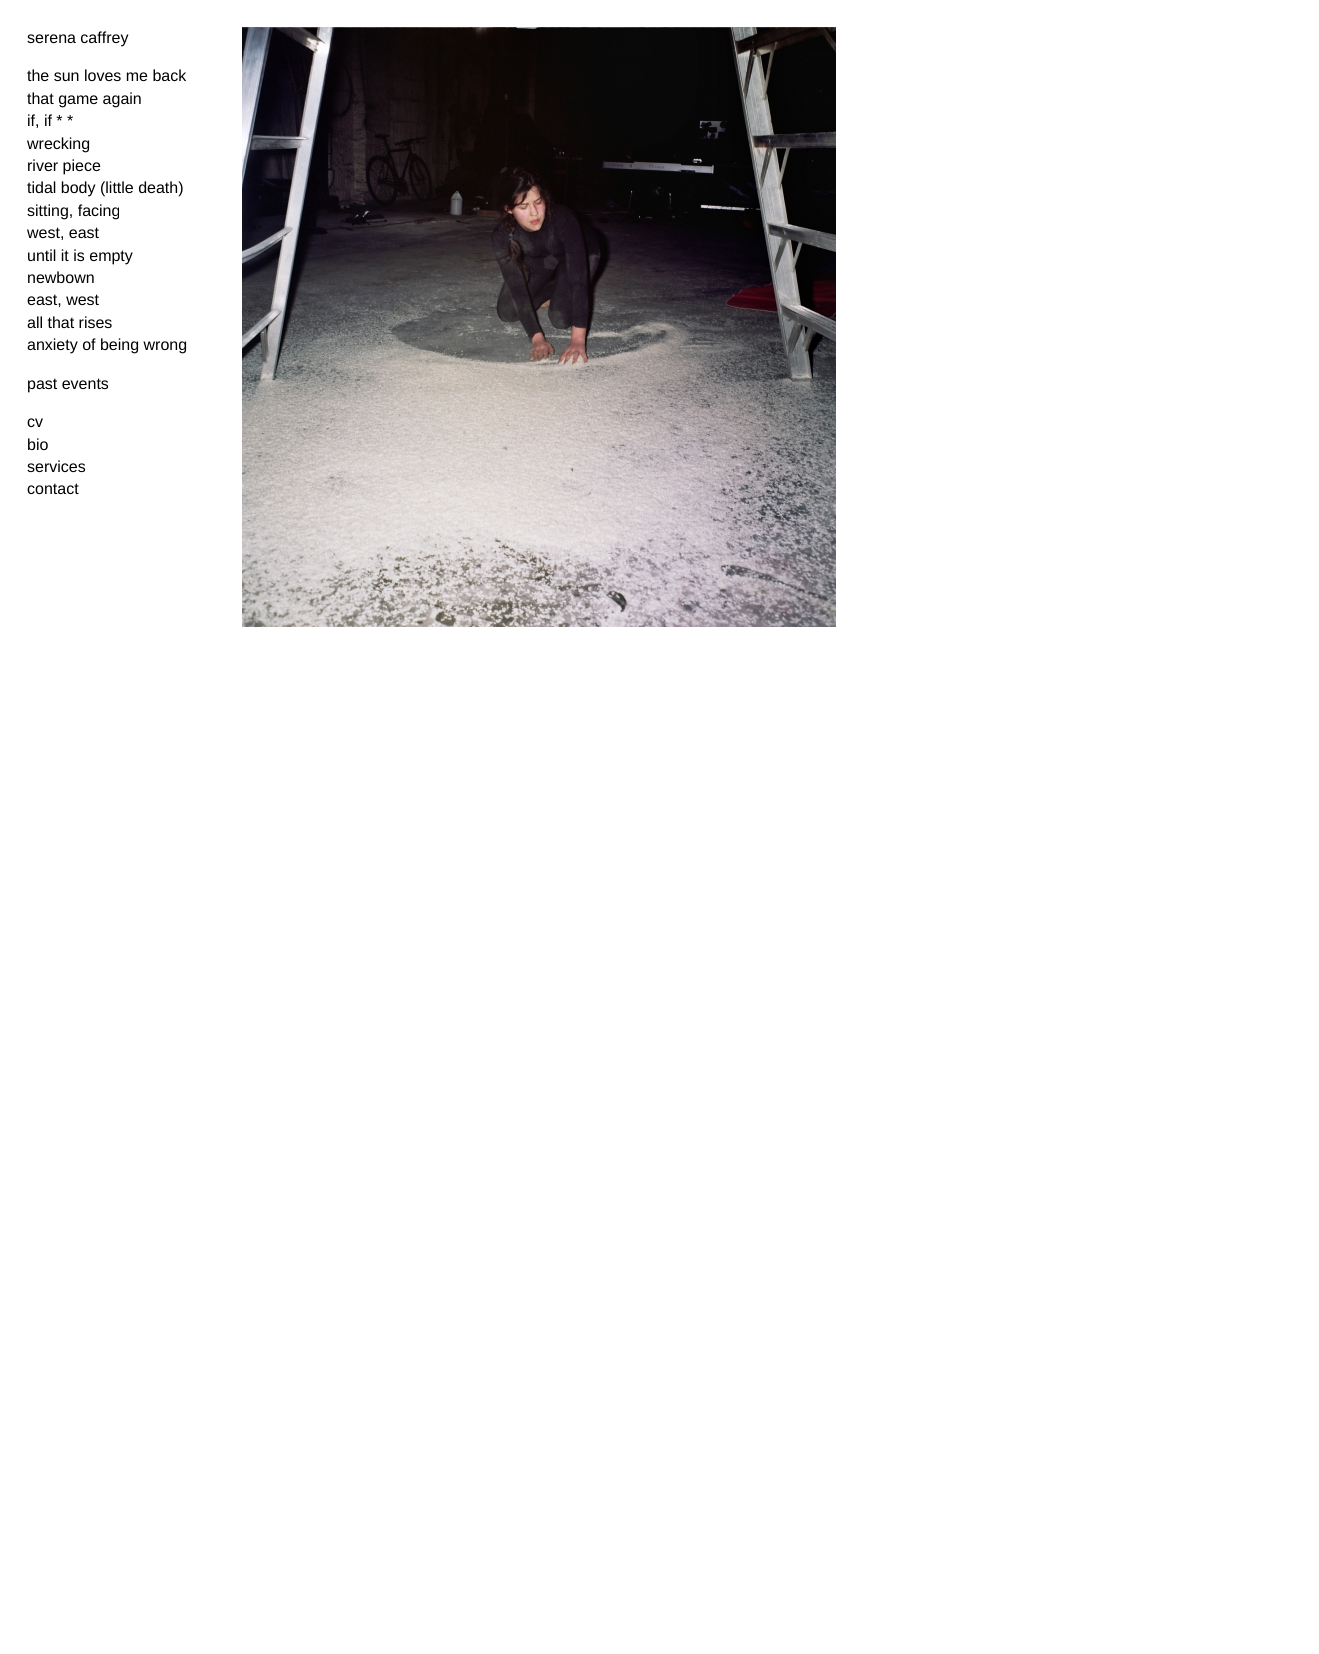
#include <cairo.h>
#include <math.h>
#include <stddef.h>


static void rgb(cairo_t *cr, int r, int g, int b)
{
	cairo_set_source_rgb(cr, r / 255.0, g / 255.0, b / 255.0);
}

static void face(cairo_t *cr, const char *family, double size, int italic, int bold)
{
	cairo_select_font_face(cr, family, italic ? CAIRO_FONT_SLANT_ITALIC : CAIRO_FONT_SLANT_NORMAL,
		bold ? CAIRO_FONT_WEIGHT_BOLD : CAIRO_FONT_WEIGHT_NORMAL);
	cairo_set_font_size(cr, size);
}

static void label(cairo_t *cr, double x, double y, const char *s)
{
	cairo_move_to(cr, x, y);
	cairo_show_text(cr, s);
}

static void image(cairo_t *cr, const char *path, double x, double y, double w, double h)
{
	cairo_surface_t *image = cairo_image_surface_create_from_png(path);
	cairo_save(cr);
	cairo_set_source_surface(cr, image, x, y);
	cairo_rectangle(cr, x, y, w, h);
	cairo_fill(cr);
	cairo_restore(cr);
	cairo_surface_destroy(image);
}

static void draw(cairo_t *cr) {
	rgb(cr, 255, 255, 255);
	cairo_paint(cr);
	face(cr, "Liberation Sans", 16, 0, 0);
	rgb(cr, 0, 0, 0);
	label(cr, 27, 43, "serena caffrey");
	label(cr, 27, 81, "the sun loves me back");
	label(cr, 27, 104, "that game again");
	label(cr, 27, 126, "if, if * *");
	label(cr, 27, 149, "wrecking");
	label(cr, 27, 171, "river piece");
	label(cr, 27, 193, "tidal body (little death)");
	label(cr, 27, 216, "sitting, facing");
	label(cr, 27, 238, "west, east");
	label(cr, 27, 261, "until it is empty");
	label(cr, 27, 283, "newbown");
	label(cr, 27, 305, "east, west");
	label(cr, 27, 328, "all that rises");
	label(cr, 27, 350, "anxiety of being wrong");
	label(cr, 27, 389, "past events");
	label(cr, 27, 427, "cv");
	label(cr, 27, 450, "bio");
	label(cr, 27, 472, "services");
	label(cr, 27, 494, "contact");
	image(cr, "image0.png", 242, 27, 594, 600);
}

int main(void) {
	cairo_surface_t *surface = cairo_image_surface_create(CAIRO_FORMAT_RGB24, 1319, 1654);
	cairo_t *cr = cairo_create(surface);
	cairo_font_options_t *options = cairo_font_options_create();
	cairo_font_options_set_hint_metrics(options, CAIRO_HINT_METRICS_OFF);
	cairo_font_options_set_hint_style(options, CAIRO_HINT_STYLE_NONE);
	cairo_set_font_options(cr, options);
	cairo_set_miter_limit(cr, 4);
	draw(cr);
	cairo_surface_write_to_png(surface, "render.png");
	cairo_font_options_destroy(options);
	cairo_destroy(cr);
	cairo_surface_destroy(surface);
	return 0;
}
